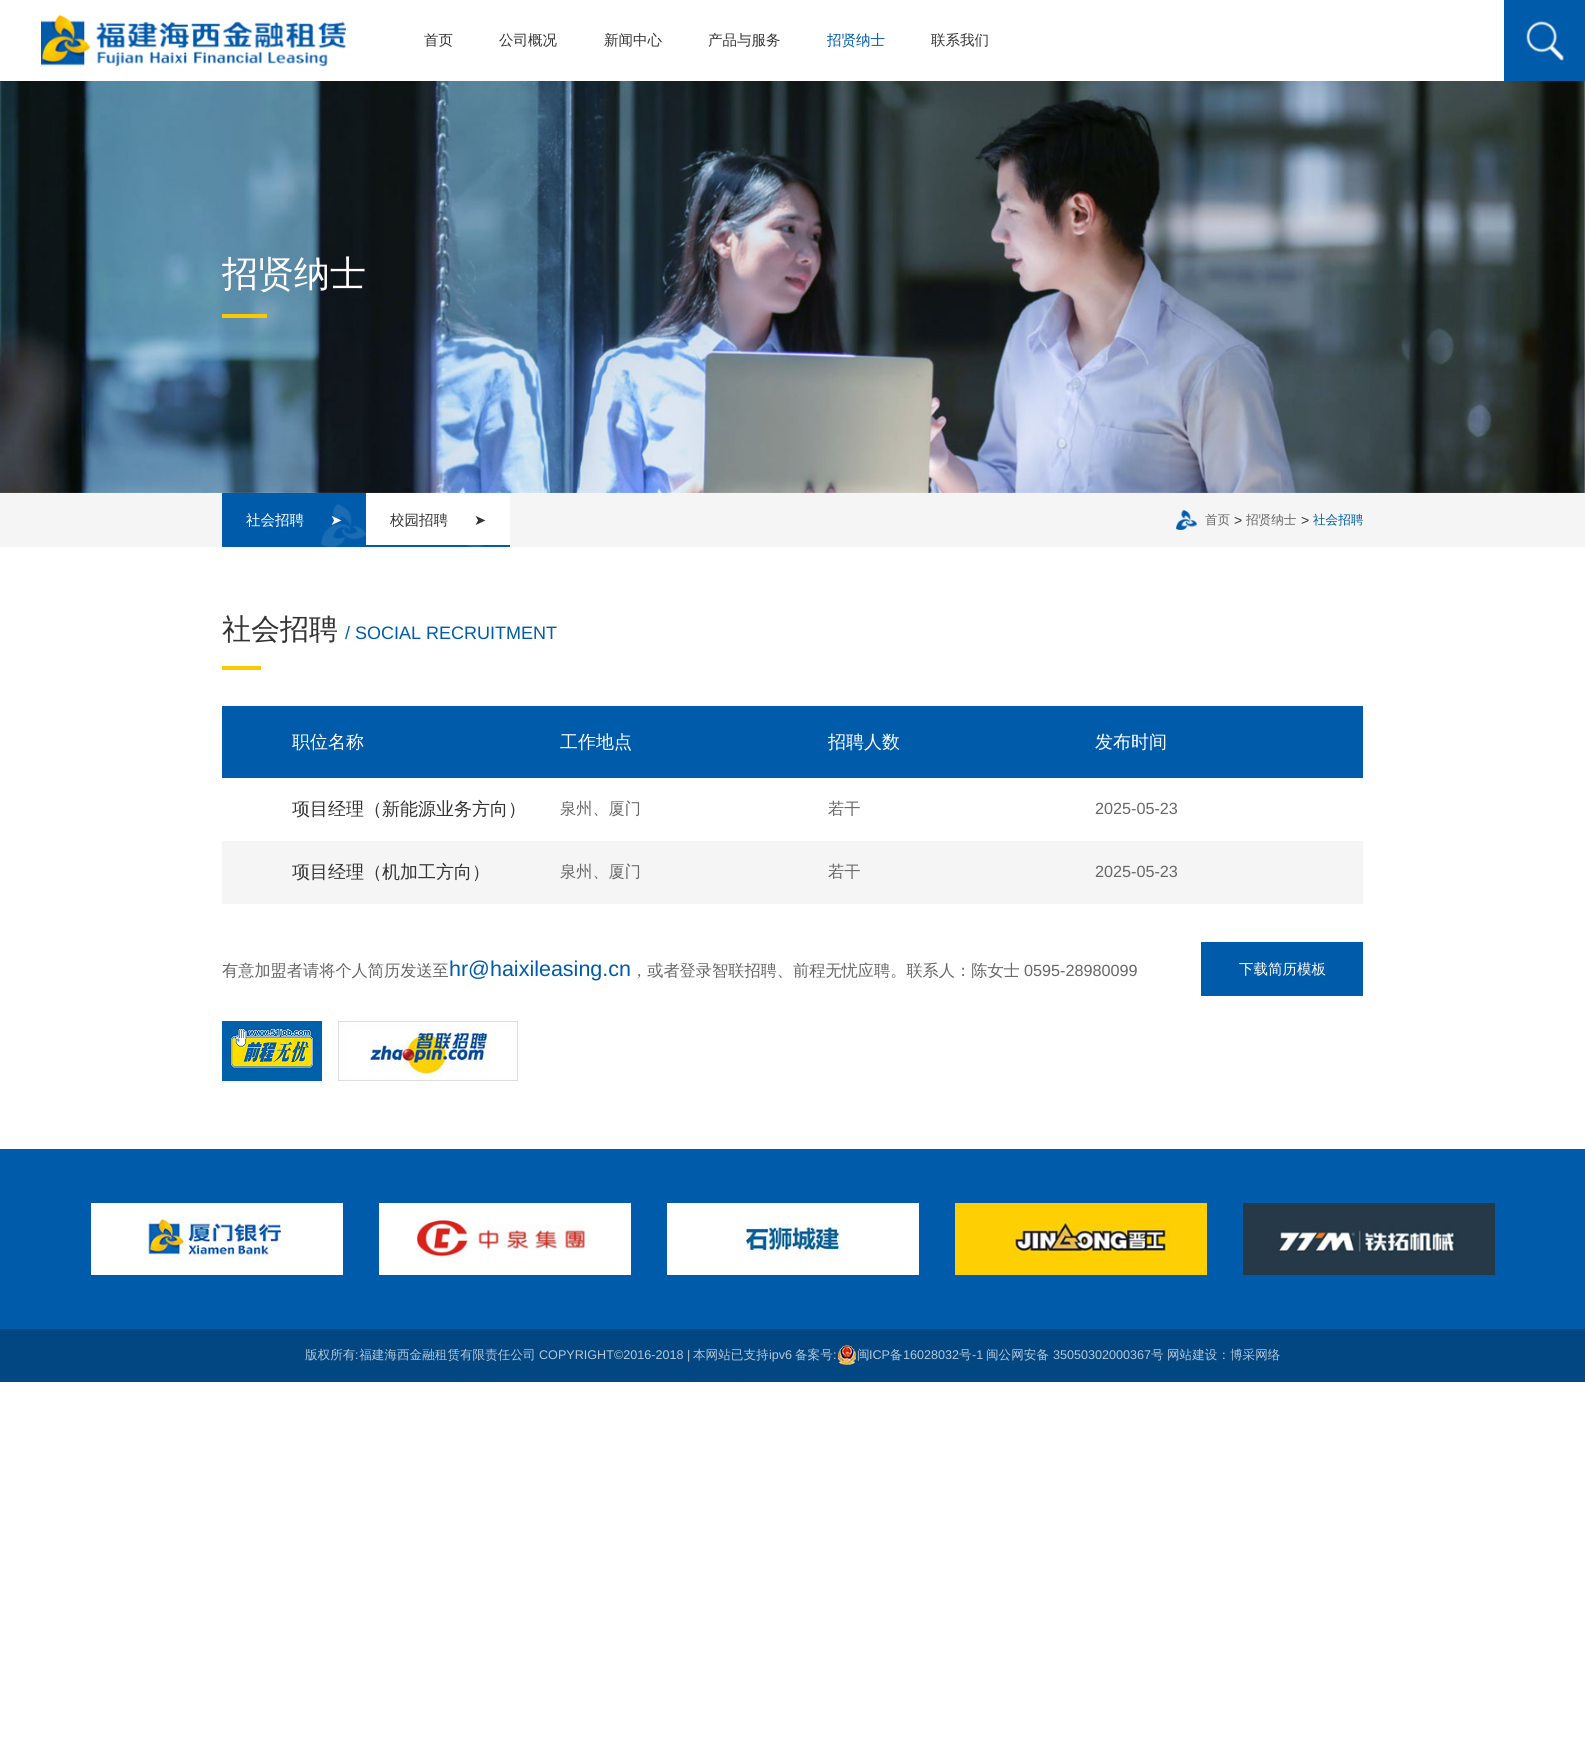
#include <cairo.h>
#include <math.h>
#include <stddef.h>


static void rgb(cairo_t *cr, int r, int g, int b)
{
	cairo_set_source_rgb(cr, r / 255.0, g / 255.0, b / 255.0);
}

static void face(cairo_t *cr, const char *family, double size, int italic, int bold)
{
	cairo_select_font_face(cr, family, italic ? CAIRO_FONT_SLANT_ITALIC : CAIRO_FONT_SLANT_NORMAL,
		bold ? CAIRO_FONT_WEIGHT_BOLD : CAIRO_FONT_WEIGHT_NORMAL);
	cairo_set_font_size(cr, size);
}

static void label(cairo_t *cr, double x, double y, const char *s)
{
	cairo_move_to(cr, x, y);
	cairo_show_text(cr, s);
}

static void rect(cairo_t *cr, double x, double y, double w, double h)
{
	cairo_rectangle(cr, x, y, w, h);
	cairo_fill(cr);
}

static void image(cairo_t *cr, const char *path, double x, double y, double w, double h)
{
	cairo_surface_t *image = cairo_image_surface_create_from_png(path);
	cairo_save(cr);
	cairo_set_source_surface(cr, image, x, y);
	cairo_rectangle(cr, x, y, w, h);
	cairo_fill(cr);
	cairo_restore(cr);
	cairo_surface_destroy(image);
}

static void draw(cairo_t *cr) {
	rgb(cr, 255, 255, 255);
	cairo_paint(cr);
	image(cr, "image0.png", 41, 14, 306, 53);
	face(cr, "WenQuanYi Zen Hei Medium", 14.5, 0, 0);
	rgb(cr, 51, 51, 51);
	label(cr, 424, 45, "首页");
	label(cr, 499, 45, "公司概况");
	label(cr, 604, 45, "新闻中心");
	label(cr, 708, 45, "产品与服务");
	rgb(cr, 0, 91, 171);
	label(cr, 827, 45, "招贤纳士");
	rgb(cr, 51, 51, 51);
	label(cr, 931, 45, "联系我们");
	rgb(cr, 0, 91, 171);
	rect(cr, 1504, 0, 81, 81);
	image(cr, "image1.png", 1526, 21, 38, 40);
	image(cr, "image2.png", 0, 81, 1585, 412);
	face(cr, "WenQuanYi Zen Hei Medium", 36, 0, 0);
	rgb(cr, 255, 255, 255);
	label(cr, 222, 286, "招贤纳士");
	rgb(cr, 252, 201, 0);
	rect(cr, 222, 314, 45, 4);
	rgb(cr, 245, 245, 245);
	rect(cr, 0, 493, 1585, 54);
	rgb(cr, 255, 255, 255);
	rect(cr, 366, 493, 144, 52);
	rgb(cr, 0, 91, 171);
	rect(cr, 222, 493, 144, 54);
	image(cr, "image3.png", 321, 504, 45, 43);
	face(cr, "WenQuanYi Zen Hei Medium", 14.5, 0, 0);
	rgb(cr, 255, 255, 255);
	label(cr, 246, 525, "社会招聘");
	face(cr, "DejaVu Sans", 14.5, 0, 0);
	label(cr, 330, 525, "➤");
	rgb(cr, 0, 91, 171);
	rect(cr, 366, 545, 144, 2);
	image(cr, "image4.png", 467, 545, 16, 2);
	face(cr, "WenQuanYi Zen Hei Medium", 14.5, 0, 0);
	rgb(cr, 51, 51, 51);
	label(cr, 390, 525, "校园招聘");
	face(cr, "DejaVu Sans", 14.5, 0, 0);
	label(cr, 474, 525, "➤");
	image(cr, "image5.png", 1176, 510, 21, 20);
	face(cr, "WenQuanYi Zen Hei Medium", 12.6, 0, 0);
	rgb(cr, 102, 102, 102);
	label(cr, 1205, 524, "首页");
	face(cr, "Liberation Sans", 14, 0, 0);
	rgb(cr, 51, 51, 51);
	label(cr, 1234, 525, ">");
	face(cr, "WenQuanYi Zen Hei Medium", 12.6, 0, 0);
	rgb(cr, 102, 102, 102);
	label(cr, 1246, 524, "招贤纳士");
	face(cr, "Liberation Sans", 14, 0, 0);
	rgb(cr, 51, 51, 51);
	label(cr, 1301, 525, ">");
	face(cr, "WenQuanYi Zen Hei Medium", 12.6, 0, 0);
	rgb(cr, 0, 91, 171);
	label(cr, 1313, 524, "社会招聘");
	face(cr, "WenQuanYi Zen Hei Medium", 29, 0, 0);
	rgb(cr, 51, 51, 51);
	label(cr, 222, 639, "社会招聘");
	face(cr, "Liberation Sans", 18, 0, 0);
	rgb(cr, 0, 91, 171);
	label(cr, 345, 639, "/ SOCIAL RECRUITMENT");
	rgb(cr, 252, 201, 0);
	rect(cr, 222, 666, 39, 4);
	rgb(cr, 0, 91, 171);
	rect(cr, 222, 706, 1141, 72);
	face(cr, "WenQuanYi Zen Hei Medium", 18, 0, 0);
	rgb(cr, 255, 255, 255);
	label(cr, 292, 748, "职位名称");
	label(cr, 560, 748, "工作地点");
	label(cr, 828, 748, "招聘人数");
	label(cr, 1095, 748, "发布时间");
	rgb(cr, 51, 51, 51);
	label(cr, 292, 815, "项目经理（新能源业务方向）");
	face(cr, "WenQuanYi Zen Hei Medium", 16.2, 0, 0);
	rgb(cr, 102, 102, 102);
	label(cr, 560, 814, "泉州、厦门");
	label(cr, 828, 814, "若干");
	face(cr, "Liberation Sans", 16.2, 0, 0);
	label(cr, 1095, 814, "2025-05-23");
	rgb(cr, 245, 245, 245);
	rect(cr, 222, 841, 1141, 63);
	face(cr, "WenQuanYi Zen Hei Medium", 18, 0, 0);
	rgb(cr, 51, 51, 51);
	label(cr, 292, 878, "项目经理（机加工方向）");
	face(cr, "WenQuanYi Zen Hei Medium", 16.2, 0, 0);
	rgb(cr, 102, 102, 102);
	label(cr, 560, 877, "泉州、厦门");
	label(cr, 828, 877, "若干");
	face(cr, "Liberation Sans", 16.2, 0, 0);
	label(cr, 1095, 877, "2025-05-23");
	face(cr, "WenQuanYi Zen Hei Medium", 16.2, 0, 0);
	label(cr, 222, 976, "有意加盟者请将个人简历发送至");
	face(cr, "Liberation Sans", 21.5, 0, 0);
	rgb(cr, 0, 91, 171);
	label(cr, 449, 976, "hr@haixileasing.cn");
	face(cr, "WenQuanYi Zen Hei Medium", 16.2, 0, 0);
	rgb(cr, 102, 102, 102);
	label(cr, 631, 976, "，或者登录智联招聘、前程无忧应聘。联系人：陈女士");
	face(cr, "Liberation Sans", 16.2, 0, 0);
	label(cr, 1024, 976, "0595-28980099");
	rgb(cr, 0, 91, 171);
	rect(cr, 1201, 942, 162, 54);
	face(cr, "WenQuanYi Zen Hei Medium", 14.5, 0, 0);
	rgb(cr, 255, 255, 255);
	label(cr, 1239, 974, "下载简历模板");
	image(cr, "image6.png", 222, 1021, 100, 60);
	image(cr, "image7.png", 338, 1021, 180, 60);
	rgb(cr, 0, 91, 171);
	rect(cr, 0, 1149, 1585, 180);
	image(cr, "image8.png", 91, 1203, 252, 72);
	image(cr, "image9.png", 379, 1203, 252, 72);
	image(cr, "image10.png", 667, 1203, 252, 72);
	image(cr, "image11.png", 955, 1203, 252, 72);
	image(cr, "image12.png", 1243, 1203, 252, 72);
	rgb(cr, 2, 70, 130);
	rect(cr, 0, 1329, 1585, 53);
	face(cr, "WenQuanYi Zen Hei Medium", 12.6, 0, 0);
	rgb(cr, 179, 200, 218);
	label(cr, 305, 1359, "版权所有 福建海西金融租赁有限责任公司");
	face(cr, "Liberation Sans", 12.6, 0, 0);
	label(cr, 539, 1359, "COPYRIGHT©2016-2018 |");
	face(cr, "WenQuanYi Zen Hei Medium", 12.6, 0, 0);
	label(cr, 693, 1359, "本网站已支持");
	face(cr, "Liberation Sans", 12.6, 0, 0);
	label(cr, 769, 1359, "ipv6");
	face(cr, "WenQuanYi Zen Hei Medium", 12.6, 0, 0);
	label(cr, 795, 1359, "备案号");
	image(cr, "image13.png", 838, 1345, 18, 20);
	label(cr, 857, 1359, "闽");
	face(cr, "Liberation Sans", 12.6, 0, 0);
	label(cr, 869, 1359, "ICP");
	face(cr, "WenQuanYi Zen Hei Medium", 12.6, 0, 0);
	label(cr, 890, 1359, "备");
	face(cr, "Liberation Sans", 12.6, 0, 0);
	label(cr, 903, 1359, "16028032");
	face(cr, "WenQuanYi Zen Hei Medium", 12.6, 0, 0);
	label(cr, 959, 1359, "号");
	face(cr, "Liberation Sans", 12.6, 0, 0);
	label(cr, 972, 1359, "-1");
	face(cr, "WenQuanYi Zen Hei Medium", 12.6, 0, 0);
	label(cr, 986, 1359, "闽公网安备");
	face(cr, "Liberation Sans", 12.6, 0, 0);
	label(cr, 1053, 1359, "35050302000367");
	face(cr, "WenQuanYi Zen Hei Medium", 12.6, 0, 0);
	label(cr, 1151, 1359, "号");
	label(cr, 1167, 1359, "网站建设：博采网络");
	face(cr, "Liberation Sans", 12.6, 0, 0);
	label(cr, 355, 1359, ":");
	label(cr, 833, 1359, ":");
}

int main(void) {
	cairo_surface_t *surface = cairo_image_surface_create(CAIRO_FORMAT_RGB24, 1585, 1758);
	cairo_t *cr = cairo_create(surface);
	cairo_font_options_t *options = cairo_font_options_create();
	cairo_font_options_set_hint_metrics(options, CAIRO_HINT_METRICS_OFF);
	cairo_font_options_set_hint_style(options, CAIRO_HINT_STYLE_NONE);
	cairo_set_font_options(cr, options);
	cairo_set_miter_limit(cr, 4);
	draw(cr);
	cairo_surface_write_to_png(surface, "render.png");
	cairo_font_options_destroy(options);
	cairo_destroy(cr);
	cairo_surface_destroy(surface);
	return 0;
}
